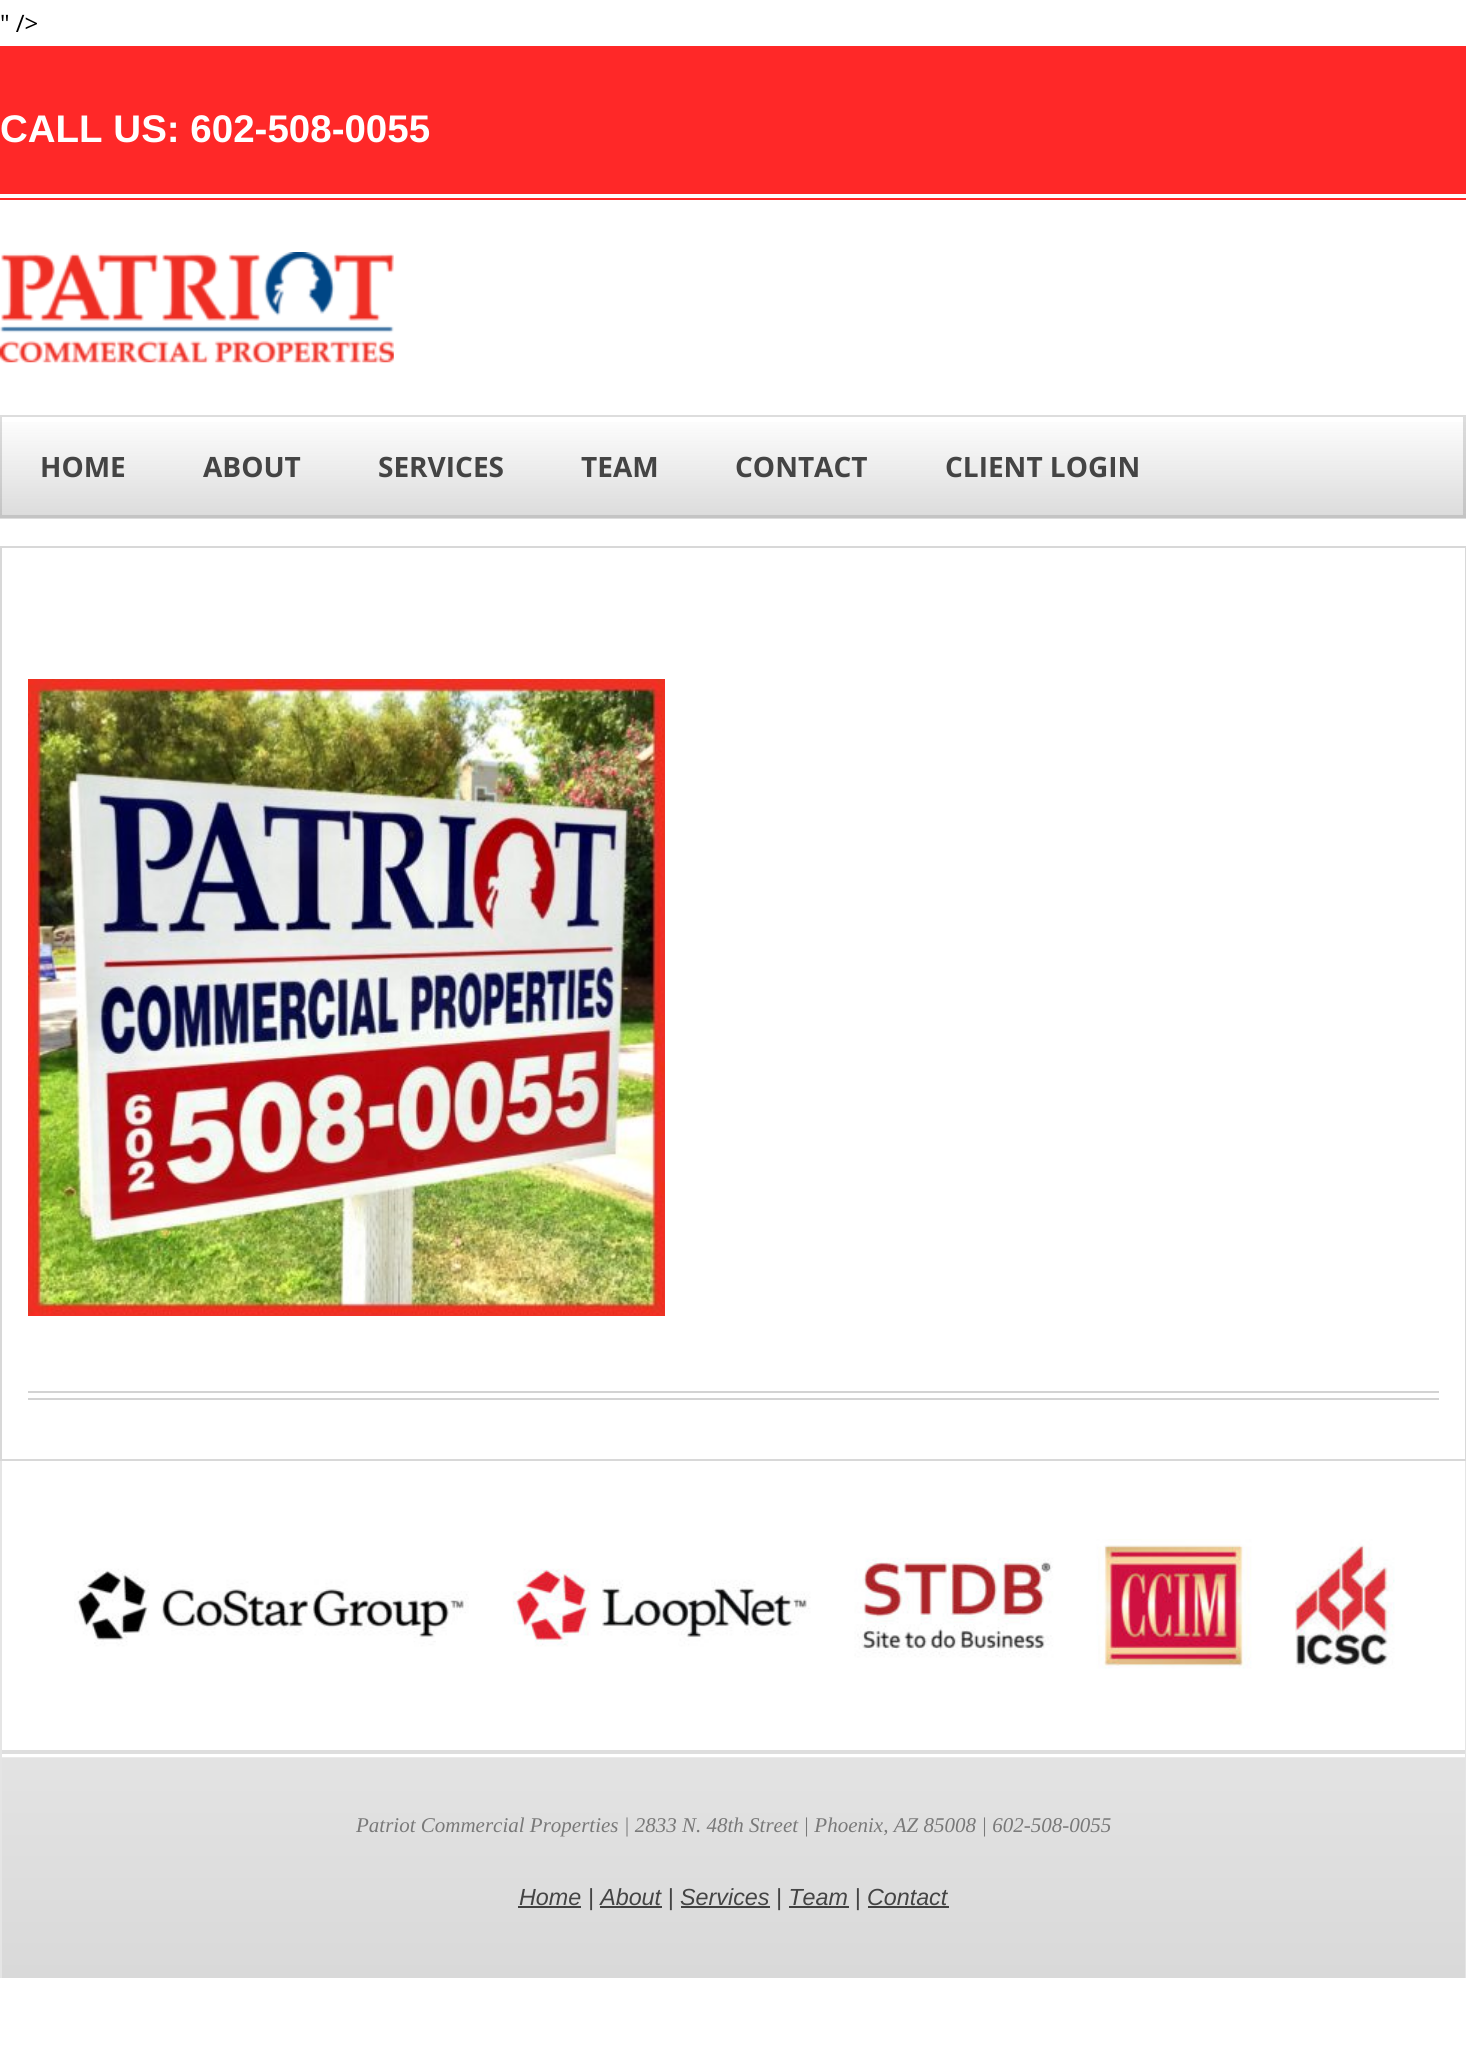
#include <cairo.h>
#include <math.h>
#include <stddef.h>


static void rgb(cairo_t *cr, int r, int g, int b)
{
	cairo_set_source_rgb(cr, r / 255.0, g / 255.0, b / 255.0);
}

static void face(cairo_t *cr, const char *family, double size, int italic, int bold)
{
	cairo_select_font_face(cr, family, italic ? CAIRO_FONT_SLANT_ITALIC : CAIRO_FONT_SLANT_NORMAL,
		bold ? CAIRO_FONT_WEIGHT_BOLD : CAIRO_FONT_WEIGHT_NORMAL);
	cairo_set_font_size(cr, size);
}

static void label(cairo_t *cr, double x, double y, const char *s)
{
	cairo_move_to(cr, x, y);
	cairo_show_text(cr, s);
}

static void rect(cairo_t *cr, double x, double y, double w, double h)
{
	cairo_rectangle(cr, x, y, w, h);
	cairo_fill(cr);
}

static void image(cairo_t *cr, const char *path, double x, double y, double w, double h)
{
	cairo_surface_t *image = cairo_image_surface_create_from_png(path);
	cairo_save(cr);
	cairo_set_source_surface(cr, image, x, y);
	cairo_rectangle(cr, x, y, w, h);
	cairo_fill(cr);
	cairo_restore(cr);
	cairo_surface_destroy(image);
}

static void draw(cairo_t *cr) {
	cairo_pattern_t *gradient;
	rgb(cr, 255, 255, 255);
	cairo_paint(cr);
	face(cr, "Open Sans", 24, 0, 0);
	rgb(cr, 0, 0, 0);
	label(cr, 0, 32, "\" />");
	rgb(cr, 255, 40, 40);
	rect(cr, 0, 198, 1466, 2);
	rect(cr, 0, 46, 1466, 148);
	face(cr, "Liberation Sans", 38.5, 0, 1);
	rgb(cr, 255, 255, 255);
	label(cr, 0, 142, "CALL US: 602-508-0055");
	image(cr, "image0.png", 0, 252, 394, 111);
	rgb(cr, 221, 221, 221);
	rect(cr, 0, 415, 1466, 2);
	rect(cr, 1463, 415, 3, 103);
	rect(cr, 0, 515, 1466, 4);
	rect(cr, 0, 415, 2, 103);
	gradient = cairo_pattern_create_linear(733, 415, 733, 518);
	cairo_pattern_add_color_stop_rgba(gradient, 0, 0.533, 0.533, 0.533, 0);
	cairo_pattern_add_color_stop_rgba(gradient, 1, 0.533, 0.533, 0.533, 0.3);
	cairo_set_source(cr, gradient);
	cairo_pattern_destroy(gradient);
	rect(cr, 0, 422, 1466, 96);
	face(cr, "Open Sans", 28, 0, 1);
	rgb(cr, 68, 68, 68);
	label(cr, 40, 477, "HOME");
	label(cr, 203, 477, "ABOUT");
	label(cr, 378, 477, "SERVICES");
	label(cr, 581, 477, "TEAM");
	label(cr, 735, 477, "CONTACT");
	label(cr, 945, 477, "CLIENT LOGIN");
	cairo_rectangle(cr, 1, 547, 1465, 913);
	rgb(cr, 216, 216, 216);
	cairo_stroke(cr);
	rgb(cr, 211, 211, 211);
	rect(cr, 28, 1391, 1411, 2);
	image(cr, "image1.png", 28, 679, 637, 637);
	rect(cr, 28, 1398, 1411, 2);
	rgb(cr, 229, 229, 229);
	rect(cr, 1465, 1461, 1, 517);
	rect(cr, 0, 1461, 2, 517);
	rgb(cr, 222, 222, 222);
	rect(cr, 2, 1750, 1463, 4);
	image(cr, "image2.png", 74, 1539, 1321, 130);
	rgb(cr, 245, 245, 245);
	rect(cr, 2, 1758, 1463, 220);
	gradient = cairo_pattern_create_linear(733, 1757, 733, 1978);
	cairo_pattern_add_color_stop_rgba(gradient, 0, 0.733, 0.733, 0.733, 0.3);
	cairo_pattern_add_color_stop_rgba(gradient, 1, 0.6, 0.6, 0.6, 0.3);
	cairo_set_source(cr, gradient);
	cairo_pattern_destroy(gradient);
	rect(cr, 2, 1757, 1463, 221);
	face(cr, "Liberation Serif", 21, 1, 0);
	rgb(cr, 121, 121, 121);
	label(cr, 356, 1832, "Patriot Commercial Properties | 2833 N. 48th Street | Phoenix, AZ 85008 | 602-508-0055");
	rgb(cr, 65, 65, 65);
	rect(cr, 518, 1906, 63, 2);
	face(cr, "Liberation Sans", 23.3, 1, 0);
	rgb(cr, 68, 68, 68);
	label(cr, 519, 1905, "Home | About | Services | Team | Contact");
	rgb(cr, 65, 65, 65);
	rect(cr, 600, 1906, 62, 2);
	rect(cr, 681, 1906, 89, 2);
	rect(cr, 789, 1906, 60, 2);
	rect(cr, 868, 1906, 81, 2);
}

int main(void) {
	cairo_surface_t *surface = cairo_image_surface_create(CAIRO_FORMAT_RGB24, 1466, 2051);
	cairo_t *cr = cairo_create(surface);
	cairo_font_options_t *options = cairo_font_options_create();
	cairo_font_options_set_hint_metrics(options, CAIRO_HINT_METRICS_OFF);
	cairo_font_options_set_hint_style(options, CAIRO_HINT_STYLE_NONE);
	cairo_set_font_options(cr, options);
	cairo_set_miter_limit(cr, 4);
	draw(cr);
	cairo_surface_write_to_png(surface, "render.png");
	cairo_font_options_destroy(options);
	cairo_destroy(cr);
	cairo_surface_destroy(surface);
	return 0;
}
